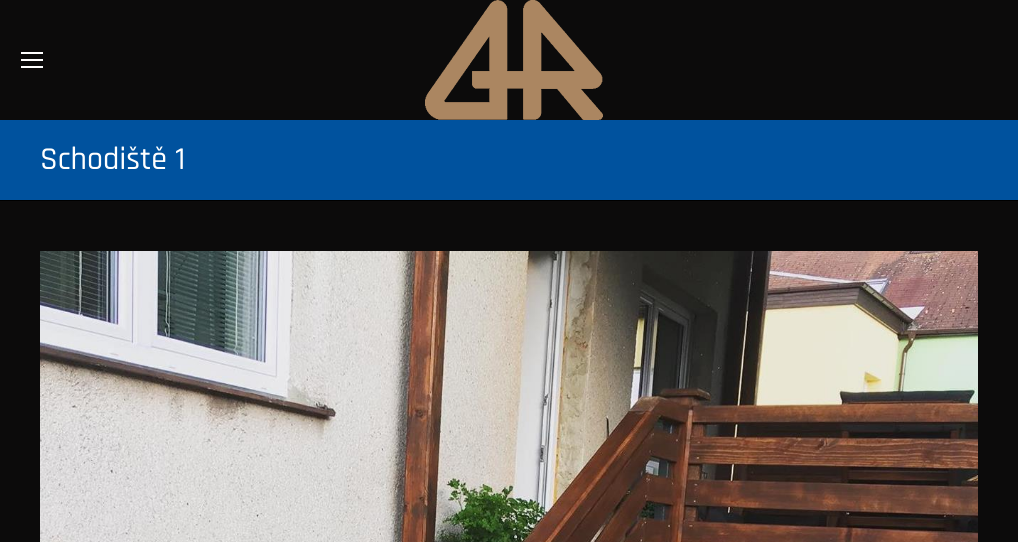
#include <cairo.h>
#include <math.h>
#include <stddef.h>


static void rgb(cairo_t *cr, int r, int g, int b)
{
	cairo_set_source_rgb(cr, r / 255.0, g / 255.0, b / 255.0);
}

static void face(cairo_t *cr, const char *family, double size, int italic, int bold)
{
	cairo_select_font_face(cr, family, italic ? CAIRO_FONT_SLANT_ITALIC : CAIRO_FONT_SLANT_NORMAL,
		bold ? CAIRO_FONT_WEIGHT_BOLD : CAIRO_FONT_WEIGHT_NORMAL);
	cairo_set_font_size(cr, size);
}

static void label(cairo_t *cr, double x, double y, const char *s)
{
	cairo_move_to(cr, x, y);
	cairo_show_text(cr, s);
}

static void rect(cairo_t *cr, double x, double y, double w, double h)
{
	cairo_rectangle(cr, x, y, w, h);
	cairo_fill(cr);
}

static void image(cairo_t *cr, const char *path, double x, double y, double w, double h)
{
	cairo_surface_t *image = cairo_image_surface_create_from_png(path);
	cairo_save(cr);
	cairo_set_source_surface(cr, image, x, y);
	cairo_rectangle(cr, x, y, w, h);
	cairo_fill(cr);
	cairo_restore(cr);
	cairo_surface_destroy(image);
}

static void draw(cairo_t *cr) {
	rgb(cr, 12, 11, 11);
	cairo_paint(cr);
	rgb(cr, 255, 255, 255);
	rect(cr, 21, 52, 22, 2);
	rect(cr, 21, 59, 22, 2);
	rect(cr, 21, 66, 22, 2);
	image(cr, "image0.png", 425, 0, 178, 120);
	rgb(cr, 0, 82, 158);
	rect(cr, 0, 120, 1018, 80);
	rgb(cr, 0, 0, 0);
	rect(cr, 0, 200, 1018, 1);
	face(cr, "Rajdhani Medium", 32, 0, 0);
	rgb(cr, 255, 255, 255);
	label(cr, 40, 169, "Schodiště 1");
	image(cr, "image1.png", 40, 251, 938, 291);
}

int main(void) {
	cairo_surface_t *surface = cairo_image_surface_create(CAIRO_FORMAT_RGB24, 1018, 542);
	cairo_t *cr = cairo_create(surface);
	cairo_font_options_t *options = cairo_font_options_create();
	cairo_font_options_set_hint_metrics(options, CAIRO_HINT_METRICS_OFF);
	cairo_font_options_set_hint_style(options, CAIRO_HINT_STYLE_NONE);
	cairo_set_font_options(cr, options);
	cairo_set_miter_limit(cr, 4);
	draw(cr);
	cairo_surface_write_to_png(surface, "render.png");
	cairo_font_options_destroy(options);
	cairo_destroy(cr);
	cairo_surface_destroy(surface);
	return 0;
}
